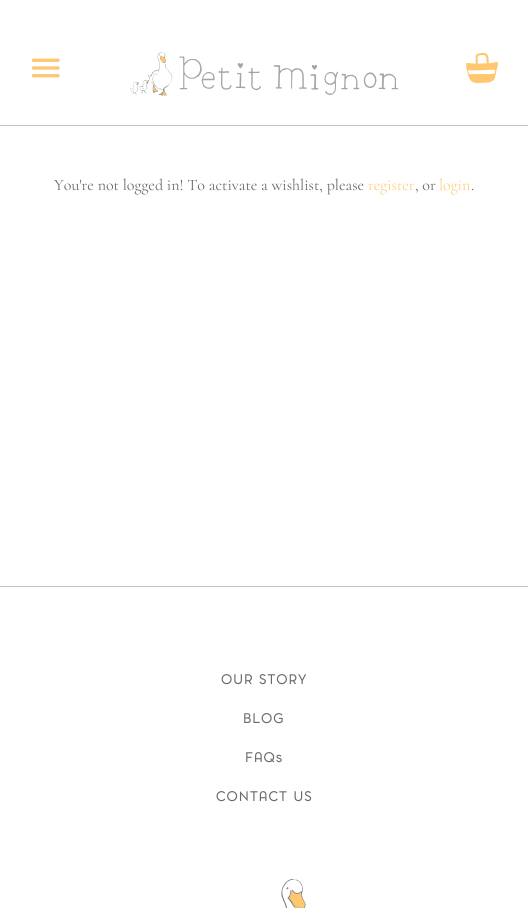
#include <cairo.h>
#include <math.h>
#include <stddef.h>


static void rgb(cairo_t *cr, int r, int g, int b)
{
	cairo_set_source_rgb(cr, r / 255.0, g / 255.0, b / 255.0);
}

static void face(cairo_t *cr, const char *family, double size, int italic, int bold)
{
	cairo_select_font_face(cr, family, italic ? CAIRO_FONT_SLANT_ITALIC : CAIRO_FONT_SLANT_NORMAL,
		bold ? CAIRO_FONT_WEIGHT_BOLD : CAIRO_FONT_WEIGHT_NORMAL);
	cairo_set_font_size(cr, size);
}

static void label(cairo_t *cr, double x, double y, const char *s)
{
	cairo_move_to(cr, x, y);
	cairo_show_text(cr, s);
}

static void tracked(cairo_t *cr, double x, double y, const char *s, double letter, double word)
{
	cairo_move_to(cr, x, y);
	while (*s) {
		char ch[5] = {0};
		int n = 0;
		do ch[n++] = *s++; while ((*s & 0xC0) == 0x80);
		cairo_show_text(cr, ch);
		cairo_rel_move_to(cr, letter + word * (*ch == ' '), 0);
	}
}

static void rect(cairo_t *cr, double x, double y, double w, double h)
{
	cairo_rectangle(cr, x, y, w, h);
	cairo_fill(cr);
}

static void image(cairo_t *cr, const char *path, double x, double y, double w, double h)
{
	cairo_surface_t *image = cairo_image_surface_create_from_png(path);
	cairo_save(cr);
	cairo_set_source_surface(cr, image, x, y);
	cairo_rectangle(cr, x, y, w, h);
	cairo_fill(cr);
	cairo_restore(cr);
	cairo_surface_destroy(image);
}

static void draw(cairo_t *cr) {
	rgb(cr, 255, 255, 255);
	cairo_paint(cr);
	image(cr, "image0.png", 31, 58, 29, 20);
	image(cr, "image1.png", 130, 52, 268, 44);
	image(cr, "image2.png", 466, 52, 32, 32);
	rgb(cr, 196, 196, 196);
	rect(cr, 0, 125, 528, 1);
	face(cr, "Cormorant", 16, 0, 0);
	rgb(cr, 106, 106, 106);
	label(cr, 54, 190, "You're not logged in! To activate a wishlist, please");
	face(cr, "Cormorant Light", 16, 0, 0);
	rgb(cr, 254, 199, 112);
	label(cr, 368, 190, "register");
	face(cr, "Cormorant", 16, 0, 0);
	rgb(cr, 106, 106, 106);
	label(cr, 415, 190, ", or");
	face(cr, "Cormorant Light", 16, 0, 0);
	rgb(cr, 254, 199, 112);
	label(cr, 439, 190, "login");
	face(cr, "Cormorant", 16, 0, 0);
	rgb(cr, 106, 106, 106);
	label(cr, 471, 190, ".");
	rgb(cr, 196, 196, 196);
	rect(cr, 0, 586, 528, 1);
	face(cr, "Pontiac", 13, 0, 0);
	rgb(cr, 106, 106, 106);
	tracked(cr, 221, 684, "OUR STORY", 1, 0);
	tracked(cr, 243, 723, "BLOG", 1, 0);
	tracked(cr, 245, 762, "FAQs", 1, 0);
	tracked(cr, 216, 801, "CONTACT US", 1, 0);
	image(cr, "image3.png", 281, 879, 25, 29);
}

int main(void) {
	cairo_surface_t *surface = cairo_image_surface_create(CAIRO_FORMAT_RGB24, 528, 908);
	cairo_t *cr = cairo_create(surface);
	cairo_font_options_t *options = cairo_font_options_create();
	cairo_font_options_set_hint_metrics(options, CAIRO_HINT_METRICS_OFF);
	cairo_font_options_set_hint_style(options, CAIRO_HINT_STYLE_NONE);
	cairo_set_font_options(cr, options);
	cairo_set_miter_limit(cr, 4);
	draw(cr);
	cairo_surface_write_to_png(surface, "render.png");
	cairo_font_options_destroy(options);
	cairo_destroy(cr);
	cairo_surface_destroy(surface);
	return 0;
}
